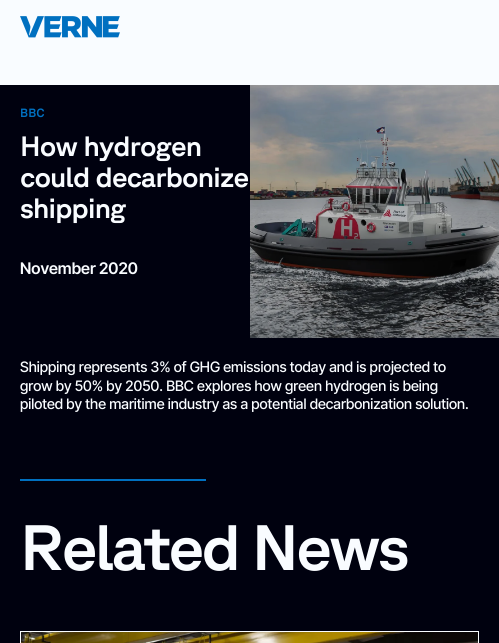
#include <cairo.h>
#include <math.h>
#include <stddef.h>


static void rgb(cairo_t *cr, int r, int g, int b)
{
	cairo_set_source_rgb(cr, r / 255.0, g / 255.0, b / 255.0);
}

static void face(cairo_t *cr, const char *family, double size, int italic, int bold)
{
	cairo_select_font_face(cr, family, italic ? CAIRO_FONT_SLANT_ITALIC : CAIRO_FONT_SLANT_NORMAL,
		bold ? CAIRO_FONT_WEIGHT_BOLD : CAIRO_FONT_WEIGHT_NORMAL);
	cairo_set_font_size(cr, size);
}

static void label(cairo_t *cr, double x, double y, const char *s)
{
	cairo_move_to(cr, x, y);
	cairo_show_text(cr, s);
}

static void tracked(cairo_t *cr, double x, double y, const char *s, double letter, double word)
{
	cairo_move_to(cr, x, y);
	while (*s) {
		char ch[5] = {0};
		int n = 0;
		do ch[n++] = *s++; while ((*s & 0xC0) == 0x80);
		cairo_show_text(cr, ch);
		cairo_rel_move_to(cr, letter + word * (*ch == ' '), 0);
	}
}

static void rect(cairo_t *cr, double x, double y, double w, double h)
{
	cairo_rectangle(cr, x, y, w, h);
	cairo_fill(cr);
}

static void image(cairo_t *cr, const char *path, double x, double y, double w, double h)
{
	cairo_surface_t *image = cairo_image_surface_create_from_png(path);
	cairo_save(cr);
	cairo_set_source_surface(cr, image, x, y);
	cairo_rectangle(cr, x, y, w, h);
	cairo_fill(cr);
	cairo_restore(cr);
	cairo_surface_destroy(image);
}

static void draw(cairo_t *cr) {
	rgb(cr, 249, 252, 255);
	cairo_paint(cr);
	image(cr, "image0.png", 20, 16, 100, 22);
	rgb(cr, 0, 1, 15);
	rect(cr, 0, 85, 250, 253);
	face(cr, "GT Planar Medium", 12, 0, 0);
	rgb(cr, 0, 112, 192);
	label(cr, 20, 117, "BBC");
	face(cr, "GT Planar Medium", 28, 0, 0);
	rgb(cr, 249, 252, 255);
	tracked(cr, 20, 156, "How hydrogen", -0.8, 0);
	tracked(cr, 20, 187, "could decarbonize", -0.8, 0);
	tracked(cr, 20, 218, "shipping", -0.8, 0);
	face(cr, "Inter Tight SemiBold", 16, 0, 0);
	label(cr, 20, 274, "November 2020");
	image(cr, "image1.png", 250, 85, 249, 253);
	rgb(cr, 0, 1, 15);
	rect(cr, 0, 338, 499, 305);
	face(cr, "Inter Tight Medium", 14.4, 0, 0);
	rgb(cr, 249, 252, 255);
	label(cr, 20, 372, "Shipping represents 3% of GHG emissions today and is projected to");
	label(cr, 20, 391, "grow by 50% by 2050. BBC explores how green hydrogen is being");
	label(cr, 20, 409, "piloted by the maritime industry as a potential decarbonization solution.");
	rgb(cr, 0, 112, 192);
	rect(cr, 20, 479, 186, 2);
	face(cr, "GT Planar Medium", 64, 0, 0);
	rgb(cr, 249, 252, 255);
	tracked(cr, 20, 570, "Related News", -2.5, 0);
	cairo_rectangle(cr, 20.5, 631.5, 458, 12);
	cairo_set_line_width(cr, 1);
	cairo_stroke(cr);
	image(cr, "image2.png", 21, 632, 457, 11);
}

int main(void) {
	cairo_surface_t *surface = cairo_image_surface_create(CAIRO_FORMAT_RGB24, 499, 643);
	cairo_t *cr = cairo_create(surface);
	cairo_font_options_t *options = cairo_font_options_create();
	cairo_font_options_set_hint_metrics(options, CAIRO_HINT_METRICS_OFF);
	cairo_font_options_set_hint_style(options, CAIRO_HINT_STYLE_NONE);
	cairo_set_font_options(cr, options);
	cairo_set_miter_limit(cr, 4);
	draw(cr);
	cairo_surface_write_to_png(surface, "render.png");
	cairo_font_options_destroy(options);
	cairo_destroy(cr);
	cairo_surface_destroy(surface);
	return 0;
}
